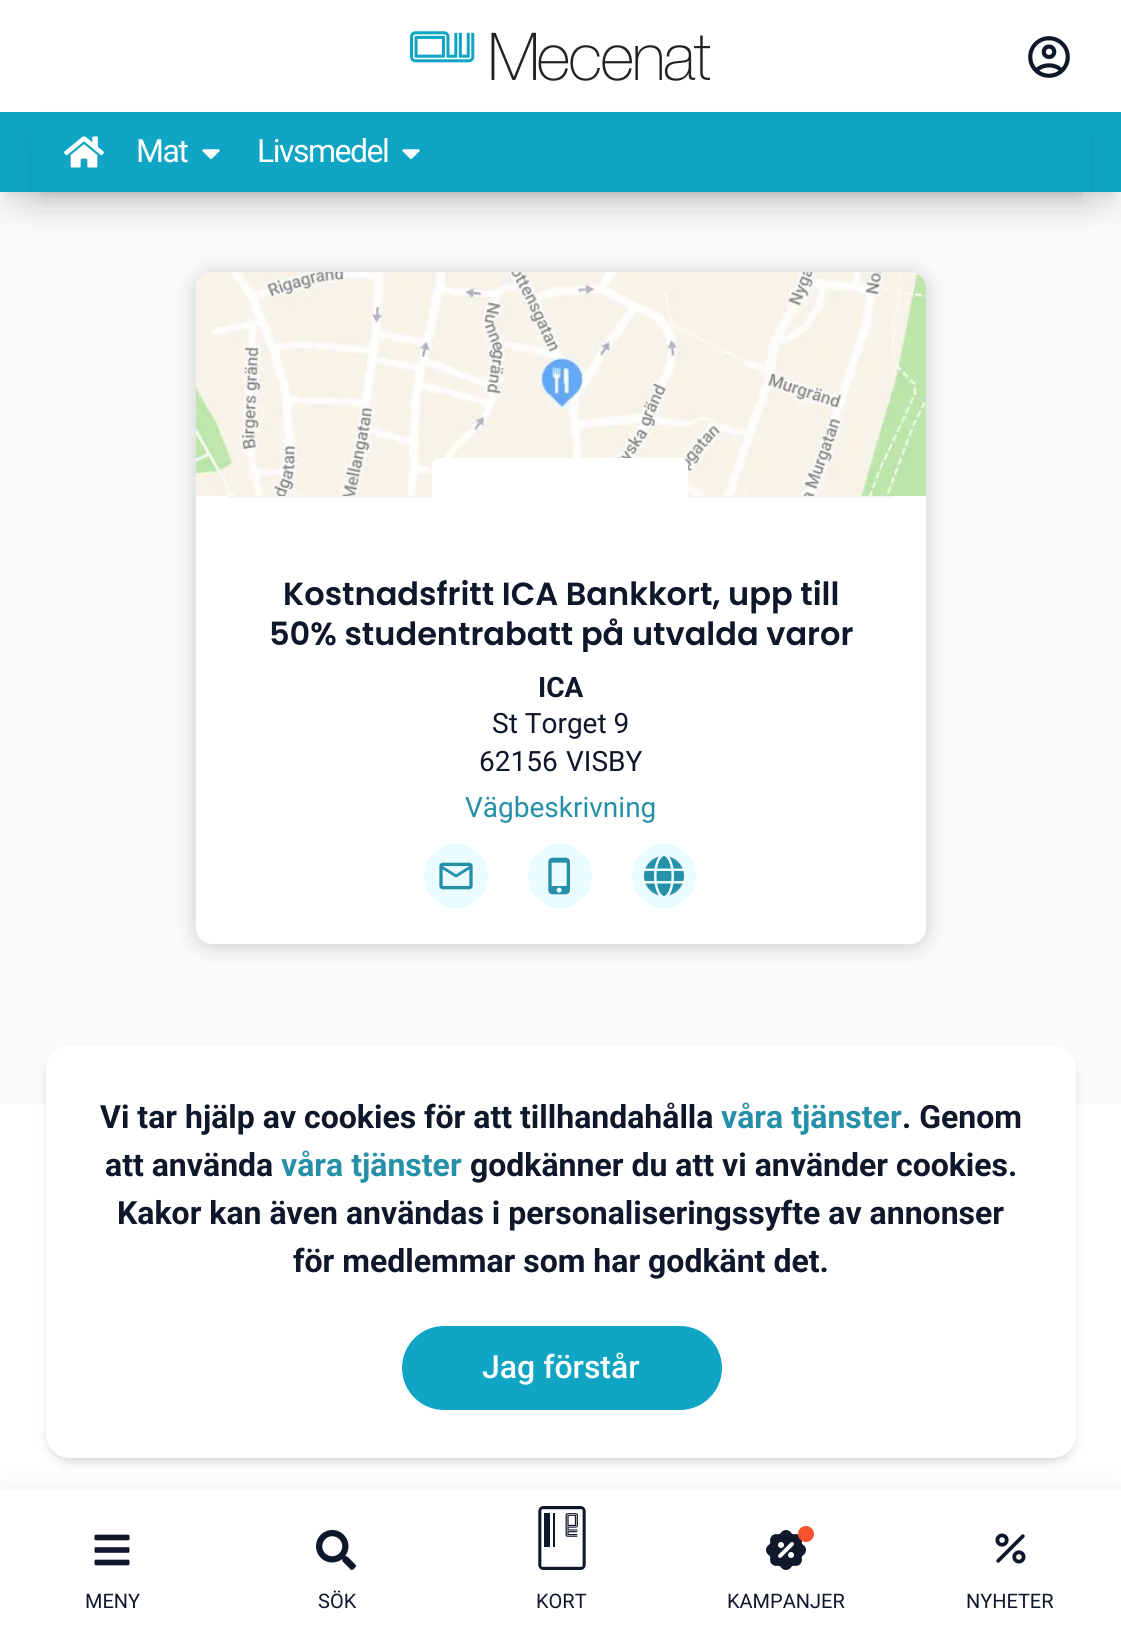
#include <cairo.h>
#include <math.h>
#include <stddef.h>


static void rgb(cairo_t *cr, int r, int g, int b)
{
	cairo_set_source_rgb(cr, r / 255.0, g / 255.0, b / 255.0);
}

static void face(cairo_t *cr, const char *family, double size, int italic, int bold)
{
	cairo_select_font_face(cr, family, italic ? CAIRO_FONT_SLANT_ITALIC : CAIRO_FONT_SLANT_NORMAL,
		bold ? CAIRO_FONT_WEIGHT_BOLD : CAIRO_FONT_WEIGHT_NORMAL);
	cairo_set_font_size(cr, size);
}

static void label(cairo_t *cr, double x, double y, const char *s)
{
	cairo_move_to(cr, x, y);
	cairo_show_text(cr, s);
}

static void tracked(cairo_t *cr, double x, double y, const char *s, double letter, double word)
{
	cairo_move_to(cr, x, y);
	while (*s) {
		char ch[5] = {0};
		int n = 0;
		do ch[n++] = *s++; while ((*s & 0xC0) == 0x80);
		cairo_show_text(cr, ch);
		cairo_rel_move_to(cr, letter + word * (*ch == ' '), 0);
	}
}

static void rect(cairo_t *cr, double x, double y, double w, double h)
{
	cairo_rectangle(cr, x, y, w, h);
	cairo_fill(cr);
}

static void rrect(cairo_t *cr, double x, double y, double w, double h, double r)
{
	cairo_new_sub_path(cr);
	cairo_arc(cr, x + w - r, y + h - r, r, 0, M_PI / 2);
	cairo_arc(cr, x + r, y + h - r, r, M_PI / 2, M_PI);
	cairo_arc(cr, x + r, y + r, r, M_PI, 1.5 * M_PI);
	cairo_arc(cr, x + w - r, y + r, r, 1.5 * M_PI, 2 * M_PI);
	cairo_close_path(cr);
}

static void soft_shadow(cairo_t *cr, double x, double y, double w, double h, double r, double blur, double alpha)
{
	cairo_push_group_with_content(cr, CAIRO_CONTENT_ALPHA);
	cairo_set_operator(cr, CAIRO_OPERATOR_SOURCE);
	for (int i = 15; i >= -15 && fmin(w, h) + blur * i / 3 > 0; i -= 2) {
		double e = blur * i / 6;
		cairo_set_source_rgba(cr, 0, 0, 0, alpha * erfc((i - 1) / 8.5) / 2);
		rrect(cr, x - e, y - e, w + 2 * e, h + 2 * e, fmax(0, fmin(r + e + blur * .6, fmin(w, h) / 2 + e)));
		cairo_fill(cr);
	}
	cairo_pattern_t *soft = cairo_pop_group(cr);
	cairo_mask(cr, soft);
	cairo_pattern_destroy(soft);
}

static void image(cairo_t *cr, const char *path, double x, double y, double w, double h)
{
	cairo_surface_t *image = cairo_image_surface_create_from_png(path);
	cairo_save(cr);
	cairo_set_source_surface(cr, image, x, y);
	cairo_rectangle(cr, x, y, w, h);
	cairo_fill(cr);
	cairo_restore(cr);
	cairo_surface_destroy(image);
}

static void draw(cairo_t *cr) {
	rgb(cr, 248, 250, 252);
	cairo_paint(cr);
	rgb(cr, 255, 255, 255);
	rect(cr, 0, 0, 1121, 112);
	image(cr, "image0.png", 410, 31, 300, 50);
	image(cr, "image1.png", 1028, 36, 42, 42);
	rgb(cr, 0, 0, 0);
	soft_shadow(cr, 8, 128, 1106, 64, 0, 6, 0.1);
	soft_shadow(cr, 6, 138, 1110, 68, 0, 15, 0.1);
	rgb(cr, 16, 165, 197);
	rect(cr, 0, 112, 1121, 80);
	cairo_save(cr);
	cairo_rectangle(cr, 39, 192, 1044, 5);
	cairo_clip(cr);
	rgb(cr, 0, 0, 0);
	soft_shadow(cr, 40, 128, 1042, 64, 0, 6, 0.1);
	cairo_restore(cr);
	cairo_save(cr);
	cairo_set_fill_rule(cr, CAIRO_FILL_RULE_EVEN_ODD);
	cairo_new_path(cr);
	cairo_move_to(cr, 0, 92);
	cairo_line_to(cr, 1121, 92);
	cairo_line_to(cr, 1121, 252);
	cairo_line_to(cr, 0, 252);
	cairo_close_path(cr);
	cairo_move_to(cr, 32, 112);
	cairo_line_to(cr, 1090, 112);
	cairo_line_to(cr, 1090, 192);
	cairo_line_to(cr, 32, 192);
	cairo_close_path(cr);
	cairo_clip(cr);
	rgb(cr, 0, 0, 0);
	soft_shadow(cr, 38, 138, 1046, 68, 0, 15, 0.1);
	cairo_restore(cr);
	image(cr, "image2.png", 64, 136, 40, 32);
	face(cr, "Roboto", 32, 0, 0);
	rgb(cr, 255, 255, 255);
	tracked(cr, 136, 162, "Mat", -1.5, 0);
	image(cr, "image3.png", 202, 149, 18, 11);
	tracked(cr, 257, 162, "Livsmedel", -1.5, 0);
	image(cr, "image3.png", 402, 149, 18, 11);
	rgb(cr, 0, 0, 0);
	soft_shadow(cr, 194, 272, 734, 676, 18, 10, 0.15);
	rgb(cr, 255, 255, 255);
	rrect(cr, 196, 272, 730, 672, 16);
	cairo_fill(cr);
	image(cr, "image4.png", 196, 272, 730, 224);
	rgb(cr, 241, 245, 249);
	rect(cr, 228, 496, 666, 2);
	rgb(cr, 255, 255, 255);
	rrect(cr, 432, 458, 256, 96, 8);
	cairo_fill(cr);
	face(cr, "Poppins SemiBold", 32, 0, 0);
	rgb(cr, 15, 23, 42);
	label(cr, 283, 605, "Kostnadsfritt ICA Bankkort, upp till");
	cairo_save(cr);
	cairo_rectangle(cr, 262, 564, 598, 88);
	cairo_clip(cr);
	label(cr, 269, 645, "50% studentrabatt på utvalda varor");
	cairo_restore(cr);
	face(cr, "Roboto", 28, 0, 1);
	label(cr, 538, 697, "ICA");
	face(cr, "Roboto", 28, 0, 0);
	label(cr, 492, 733, "St Torget 9");
	label(cr, 479, 771, "62156");
	label(cr, 566, 771, "VISBY");
	rgb(cr, 37, 144, 168);
	label(cr, 465, 817, "Vägbeskrivning");
	rgb(cr, 234, 252, 255);
	cairo_new_path(cr);
	cairo_arc(cr, 456, 876, 32, 0, 2 * M_PI);
	cairo_fill(cr);
	image(cr, "image5.png", 439, 862, 34, 28);
	cairo_arc(cr, 560, 876, 32, 0, 2 * M_PI);
	cairo_fill(cr);
	image(cr, "image6.png", 548, 857, 22, 38);
	cairo_arc(cr, 664, 876, 32, 0, 2 * M_PI);
	cairo_fill(cr);
	image(cr, "image7.png", 644, 856, 40, 40);
	rgb(cr, 255, 255, 255);
	rect(cr, 0, 1104, 1121, 386);
	rgb(cr, 0, 0, 0);
	soft_shadow(cr, 50, 1054, 1022, 404, 20, 4, 0.1);
	soft_shadow(cr, 48, 1056, 1026, 408, 22, 6, 0.1);
	soft_shadow(cr, 0, 1490, 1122, 142, 0, 15, 0.07);
	rgb(cr, 255, 255, 255);
	rrect(cr, 46, 1046, 1030, 412, 24);
	cairo_fill(cr);
	face(cr, "Roboto", 32, 0, 1);
	rgb(cr, 15, 23, 42);
	label(cr, 100, 1128, "Vi tar hjälp av cookies för att tillhandahålla");
	rgb(cr, 37, 144, 168);
	label(cr, 721, 1128, "våra tjänster");
	rgb(cr, 15, 23, 42);
	label(cr, 902, 1128, ". Genom");
	label(cr, 105, 1176, "att använda");
	rgb(cr, 37, 144, 168);
	label(cr, 281, 1176, "våra tjänster");
	rgb(cr, 15, 23, 42);
	label(cr, 470, 1176, "godkänner du att vi använder cookies.");
	label(cr, 117, 1224, "Kakor kan även användas i personaliseringssyfte av annonser");
	label(cr, 293, 1272, "för medlemmar som har godkänt det.");
	rgb(cr, 16, 165, 197);
	rrect(cr, 403, 1327, 318, 82, 41);
	cairo_fill_preserve(cr);
	cairo_stroke(cr);
	face(cr, "Roboto Medium", 32, 0, 0);
	rgb(cr, 255, 255, 255);
	label(cr, 482, 1378, "Jag förstår");
	rect(cr, 0, 1490, 1121, 142);
	image(cr, "image8.png", 94, 1534, 36, 32);
	face(cr, "Roboto", 20, 0, 0);
	rgb(cr, 15, 23, 42);
	label(cr, 85, 1608, "MENY");
	image(cr, "image9.png", 316, 1530, 40, 40);
	label(cr, 318, 1608, "SÖK");
	image(cr, "image10.png", 538, 1506, 48, 64);
	label(cr, 536, 1608, "KORT");
	image(cr, "image11.png", 766, 1530, 40, 40);
	rgb(cr, 248, 81, 45);
	cairo_arc(cr, 806, 1534, 8, 0, 2 * M_PI);
	cairo_fill(cr);
	rgb(cr, 15, 23, 42);
	label(cr, 727, 1608, "KAMPANJER");
	image(cr, "image12.png", 995, 1533, 31, 31);
	label(cr, 966, 1608, "NYHETER");
}

int main(void) {
	cairo_surface_t *surface = cairo_image_surface_create(CAIRO_FORMAT_RGB24, 1121, 1632);
	cairo_t *cr = cairo_create(surface);
	cairo_font_options_t *options = cairo_font_options_create();
	cairo_font_options_set_hint_metrics(options, CAIRO_HINT_METRICS_OFF);
	cairo_font_options_set_hint_style(options, CAIRO_HINT_STYLE_NONE);
	cairo_set_font_options(cr, options);
	cairo_set_miter_limit(cr, 4);
	draw(cr);
	cairo_surface_write_to_png(surface, "render.png");
	cairo_font_options_destroy(options);
	cairo_destroy(cr);
	cairo_surface_destroy(surface);
	return 0;
}
